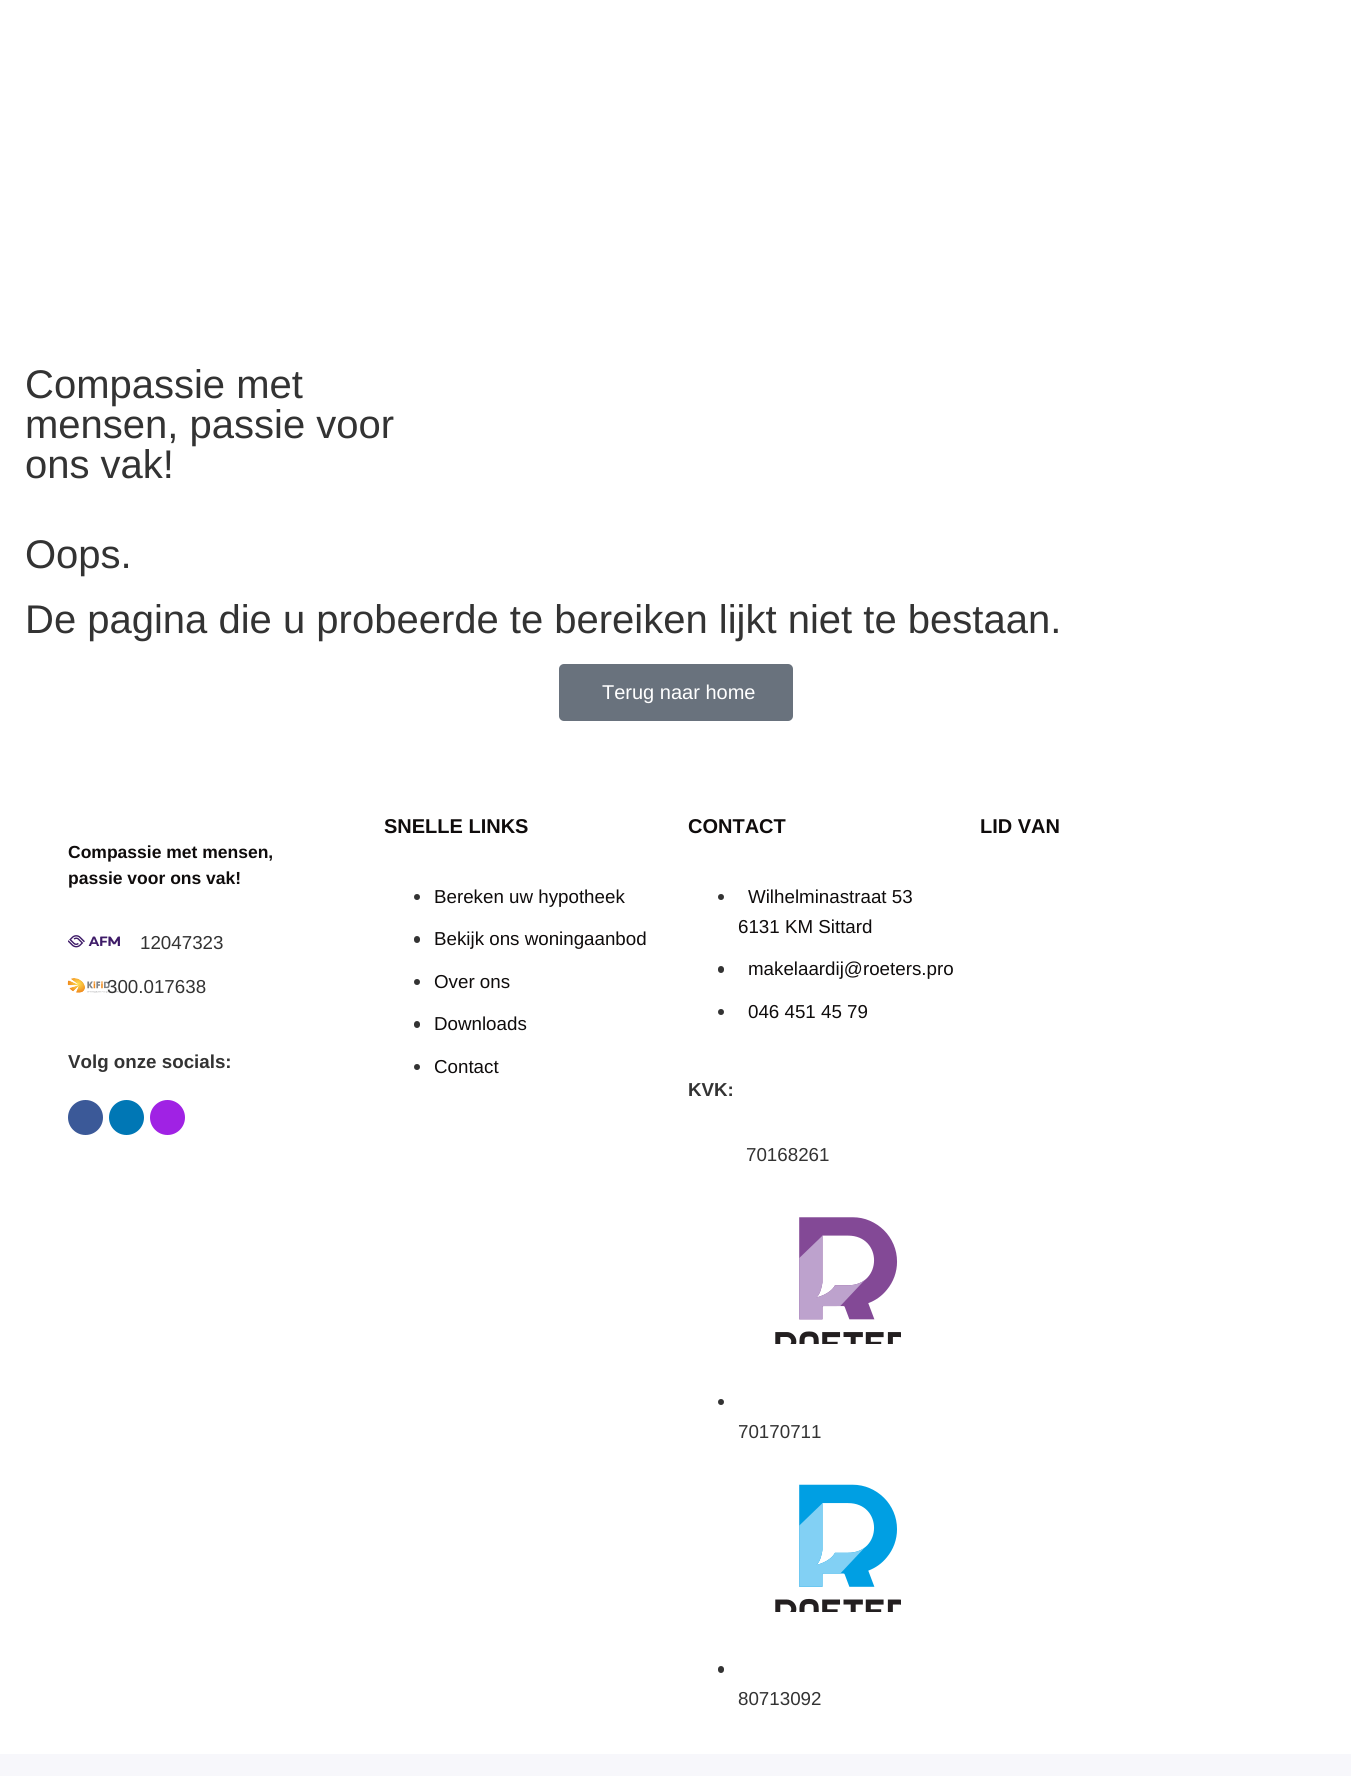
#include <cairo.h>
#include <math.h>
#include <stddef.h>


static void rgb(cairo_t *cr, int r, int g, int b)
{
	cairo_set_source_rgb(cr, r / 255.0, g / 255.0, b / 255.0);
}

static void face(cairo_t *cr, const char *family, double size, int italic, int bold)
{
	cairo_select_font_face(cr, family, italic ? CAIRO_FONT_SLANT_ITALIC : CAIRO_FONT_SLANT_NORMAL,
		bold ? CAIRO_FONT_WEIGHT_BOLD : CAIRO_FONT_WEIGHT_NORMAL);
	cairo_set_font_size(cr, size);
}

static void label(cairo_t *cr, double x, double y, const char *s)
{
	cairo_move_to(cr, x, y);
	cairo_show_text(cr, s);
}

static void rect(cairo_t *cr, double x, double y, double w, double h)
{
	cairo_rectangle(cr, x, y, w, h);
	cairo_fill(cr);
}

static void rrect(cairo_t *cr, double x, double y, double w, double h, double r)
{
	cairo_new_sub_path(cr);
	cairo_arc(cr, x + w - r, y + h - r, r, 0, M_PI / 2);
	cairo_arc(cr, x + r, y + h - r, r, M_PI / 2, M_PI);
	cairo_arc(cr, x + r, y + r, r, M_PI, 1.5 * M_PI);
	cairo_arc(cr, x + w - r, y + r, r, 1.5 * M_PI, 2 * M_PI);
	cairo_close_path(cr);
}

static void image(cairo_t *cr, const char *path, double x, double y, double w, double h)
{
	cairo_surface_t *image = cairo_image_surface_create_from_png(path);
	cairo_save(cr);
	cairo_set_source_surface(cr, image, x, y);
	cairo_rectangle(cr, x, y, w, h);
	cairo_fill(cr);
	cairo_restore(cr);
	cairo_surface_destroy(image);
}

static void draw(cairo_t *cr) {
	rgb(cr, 255, 255, 255);
	cairo_paint(cr);
	face(cr, "Liberation Sans", 40, 0, 0);
	rgb(cr, 51, 51, 51);
	label(cr, 25, 398, "Compassie met");
	label(cr, 25, 438, "mensen, passie voor");
	label(cr, 25, 478, "ons vak!");
	label(cr, 25, 568, "Oops.");
	label(cr, 25, 633, "De pagina die u probeerde te bereiken lijkt niet te bestaan.");
	rgb(cr, 105, 114, 125);
	rrect(cr, 559, 664, 234, 57, 5);
	cairo_fill(cr);
	face(cr, "Liberation Sans", 20, 0, 0);
	rgb(cr, 255, 255, 255);
	label(cr, 602, 699, "Terug naar home");
	face(cr, "Liberation Sans", 20, 0, 1);
	rgb(cr, 15, 12, 12);
	label(cr, 384, 833, "SNELLE LINKS");
	rgb(cr, 51, 51, 51);
	cairo_new_path(cr);
	cairo_arc(cr, 417, 897, 3, 0, 2 * M_PI);
	cairo_fill(cr);
	face(cr, "Liberation Sans", 18.75, 0, 0);
	rgb(cr, 15, 12, 12);
	label(cr, 434, 903, "Bereken uw hypotheek");
	rgb(cr, 51, 51, 51);
	rrect(cr, 414, 936, 6, 7, 3);
	cairo_fill(cr);
	rgb(cr, 15, 12, 12);
	label(cr, 434, 945, "Bekijk ons woningaanbod");
	rgb(cr, 51, 51, 51);
	cairo_new_path(cr);
	cairo_arc(cr, 417, 982, 3, 0, 2 * M_PI);
	cairo_fill(cr);
	rgb(cr, 15, 12, 12);
	label(cr, 434, 988, "Over ons");
	rgb(cr, 51, 51, 51);
	rrect(cr, 414, 1021, 6, 7, 3);
	cairo_fill(cr);
	rgb(cr, 15, 12, 12);
	label(cr, 434, 1030, "Downloads");
	rgb(cr, 51, 51, 51);
	cairo_new_path(cr);
	cairo_arc(cr, 417, 1067, 3, 0, 2 * M_PI);
	cairo_fill(cr);
	rgb(cr, 15, 12, 12);
	label(cr, 434, 1073, "Contact");
	face(cr, "Liberation Sans", 20, 0, 1);
	label(cr, 688, 833, "CONTACT");
	rgb(cr, 51, 51, 51);
	cairo_new_path(cr);
	cairo_arc(cr, 721, 897, 3, 0, 2 * M_PI);
	cairo_fill(cr);
	face(cr, "Liberation Sans", 18.75, 0, 0);
	rgb(cr, 15, 12, 12);
	label(cr, 748, 903, "Wilhelminastraat 53");
	label(cr, 738, 933, "6131 KM Sittard");
	rgb(cr, 51, 51, 51);
	rrect(cr, 718, 966, 6, 7, 3);
	cairo_fill(cr);
	rgb(cr, 15, 12, 12);
	label(cr, 748, 975, "makelaardij@roeters.pro");
	rgb(cr, 51, 51, 51);
	cairo_new_path(cr);
	cairo_arc(cr, 721, 1012, 3, 0, 2 * M_PI);
	cairo_fill(cr);
	rgb(cr, 15, 12, 12);
	label(cr, 748, 1018, "046 451 45 79");
	face(cr, "Liberation Sans", 18.75, 0, 1);
	rgb(cr, 51, 51, 51);
	label(cr, 688, 1096, "KVK:");
	face(cr, "Liberation Sans", 18.75, 0, 0);
	label(cr, 746, 1161, "70168261");
	image(cr, "image0.png", 775, 1217, 126, 127);
	cairo_arc(cr, 721, 1402, 3, 0, 2 * M_PI);
	cairo_fill(cr);
	label(cr, 738, 1438, "70170711");
	image(cr, "image1.png", 775, 1484, 126, 128);
	rrect(cr, 718, 1666, 6, 7, 3);
	cairo_fill(cr);
	label(cr, 738, 1705, "80713092");
	face(cr, "Liberation Sans", 20, 0, 1);
	rgb(cr, 15, 12, 12);
	label(cr, 980, 833, "LID VAN");
	face(cr, "Liberation Sans", 17.5, 0, 1);
	label(cr, 68, 858, "Compassie met mensen,");
	label(cr, 68, 884, "passie voor ons vak!");
	image(cr, "image2.png", 68, 935, 52, 13);
	face(cr, "Liberation Sans", 18.75, 0, 0);
	rgb(cr, 51, 51, 51);
	label(cr, 140, 949, "12047323");
	image(cr, "image3.png", 67, 978, 57, 15);
	label(cr, 107, 993, "300.017638");
	face(cr, "Liberation Sans", 18.75, 0, 1);
	label(cr, 68, 1068, "Volg onze socials:");
	rgb(cr, 59, 89, 152);
	cairo_new_path(cr);
	cairo_arc(cr, 85.5, 1117.5, 17.5, 0, 2 * M_PI);
	cairo_fill(cr);
	rgb(cr, 0, 119, 181);
	cairo_arc(cr, 126.5, 1117.5, 17.5, 0, 2 * M_PI);
	cairo_fill(cr);
	rgb(cr, 160, 34, 228);
	cairo_arc(cr, 167.5, 1117.5, 17.5, 0, 2 * M_PI);
	cairo_fill(cr);
	rgb(cr, 247, 247, 251);
	rect(cr, 0, 1754, 1351, 22);
}

int main(void) {
	cairo_surface_t *surface = cairo_image_surface_create(CAIRO_FORMAT_RGB24, 1351, 1776);
	cairo_t *cr = cairo_create(surface);
	cairo_font_options_t *options = cairo_font_options_create();
	cairo_font_options_set_hint_metrics(options, CAIRO_HINT_METRICS_OFF);
	cairo_font_options_set_hint_style(options, CAIRO_HINT_STYLE_NONE);
	cairo_set_font_options(cr, options);
	cairo_set_miter_limit(cr, 4);
	draw(cr);
	cairo_surface_write_to_png(surface, "render.png");
	cairo_font_options_destroy(options);
	cairo_destroy(cr);
	cairo_surface_destroy(surface);
	return 0;
}
